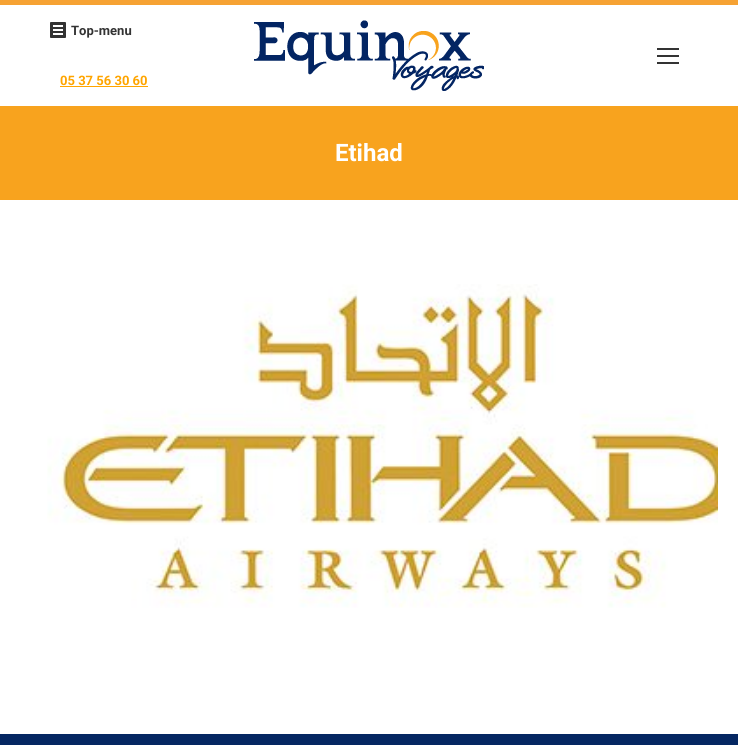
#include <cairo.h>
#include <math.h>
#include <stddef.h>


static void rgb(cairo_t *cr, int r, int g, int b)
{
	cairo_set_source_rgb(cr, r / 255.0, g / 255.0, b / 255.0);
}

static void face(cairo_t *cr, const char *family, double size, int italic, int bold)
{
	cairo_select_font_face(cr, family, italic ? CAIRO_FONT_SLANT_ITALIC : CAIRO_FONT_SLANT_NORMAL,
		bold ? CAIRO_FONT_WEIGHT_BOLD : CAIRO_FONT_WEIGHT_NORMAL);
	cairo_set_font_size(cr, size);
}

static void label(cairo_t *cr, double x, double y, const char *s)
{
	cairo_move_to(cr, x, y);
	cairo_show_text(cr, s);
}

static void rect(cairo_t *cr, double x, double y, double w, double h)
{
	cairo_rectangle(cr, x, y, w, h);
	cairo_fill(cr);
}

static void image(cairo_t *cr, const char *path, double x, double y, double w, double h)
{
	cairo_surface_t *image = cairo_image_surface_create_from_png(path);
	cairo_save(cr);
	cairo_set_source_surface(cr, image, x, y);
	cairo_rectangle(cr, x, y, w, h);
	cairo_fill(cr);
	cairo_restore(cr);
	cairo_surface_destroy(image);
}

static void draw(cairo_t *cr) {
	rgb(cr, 255, 255, 255);
	cairo_paint(cr);
	rgb(cr, 246, 162, 51);
	rect(cr, 0, 0, 738, 5);
	image(cr, "image0.png", 50, 22, 16, 16);
	face(cr, "Roboto", 13, 0, 1);
	rgb(cr, 51, 51, 51);
	label(cr, 71, 35, "Top-menu");
	rgb(cr, 255, 165, 0);
	label(cr, 60, 85, "05 37 56 30 60");
	rect(cr, 60, 86, 88, 1);
	image(cr, "image1.png", 254, 20, 230, 71);
	rgb(cr, 51, 51, 51);
	rect(cr, 657, 48, 22, 2);
	rect(cr, 657, 55, 22, 2);
	rect(cr, 657, 62, 22, 2);
	rgb(cr, 248, 163, 30);
	rect(cr, 0, 106, 738, 94);
	face(cr, "Roboto", 24, 0, 1);
	rgb(cr, 255, 255, 255);
	label(cr, 335, 161, "Etihad");
	image(cr, "image2.png", 47, 284, 671, 324);
	rgb(cr, 5, 39, 98);
	rect(cr, 0, 734, 738, 11);
}

int main(void) {
	cairo_surface_t *surface = cairo_image_surface_create(CAIRO_FORMAT_RGB24, 738, 745);
	cairo_t *cr = cairo_create(surface);
	cairo_font_options_t *options = cairo_font_options_create();
	cairo_font_options_set_hint_metrics(options, CAIRO_HINT_METRICS_OFF);
	cairo_font_options_set_hint_style(options, CAIRO_HINT_STYLE_NONE);
	cairo_set_font_options(cr, options);
	cairo_set_miter_limit(cr, 4);
	draw(cr);
	cairo_surface_write_to_png(surface, "render.png");
	cairo_font_options_destroy(options);
	cairo_destroy(cr);
	cairo_surface_destroy(surface);
	return 0;
}
